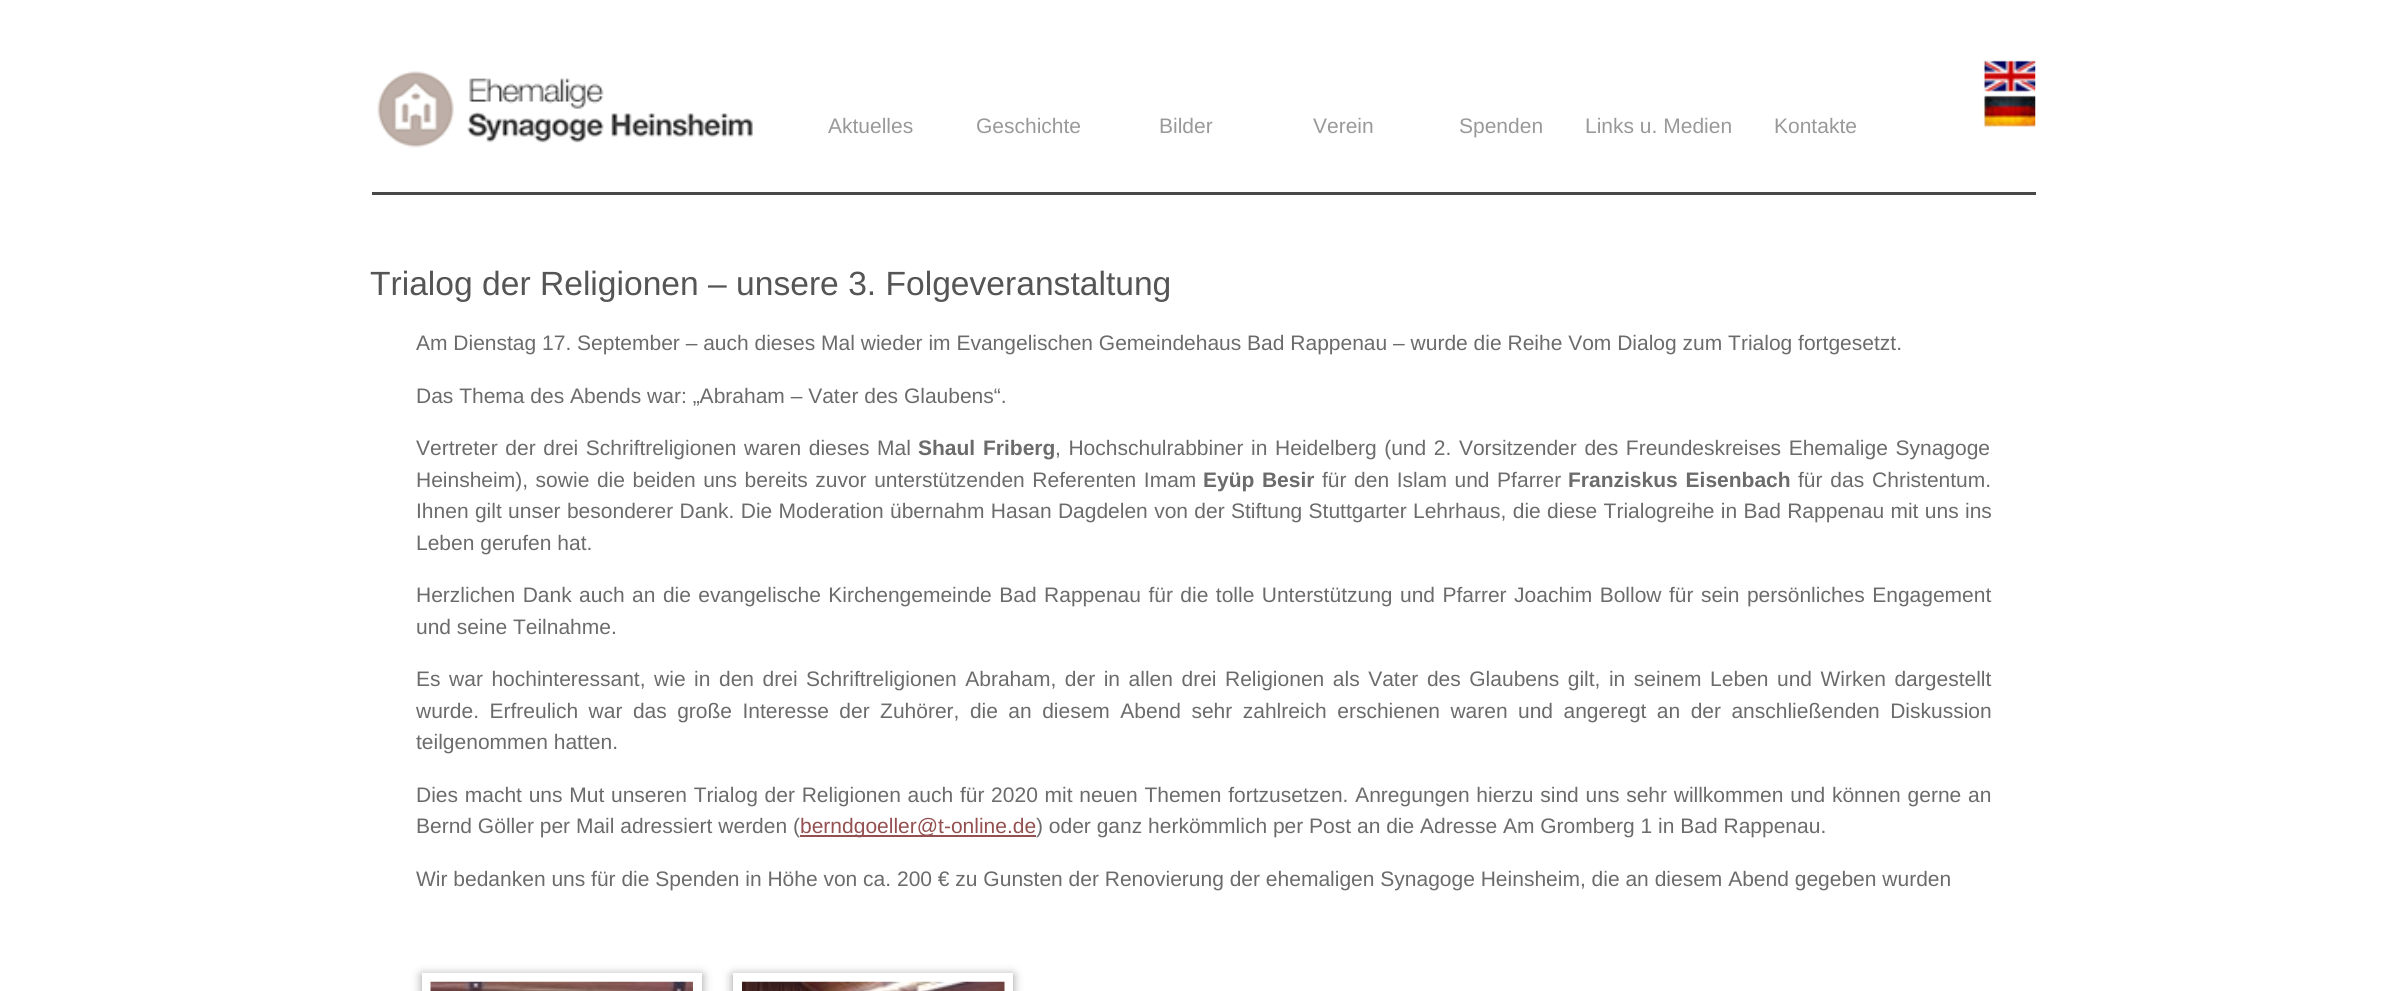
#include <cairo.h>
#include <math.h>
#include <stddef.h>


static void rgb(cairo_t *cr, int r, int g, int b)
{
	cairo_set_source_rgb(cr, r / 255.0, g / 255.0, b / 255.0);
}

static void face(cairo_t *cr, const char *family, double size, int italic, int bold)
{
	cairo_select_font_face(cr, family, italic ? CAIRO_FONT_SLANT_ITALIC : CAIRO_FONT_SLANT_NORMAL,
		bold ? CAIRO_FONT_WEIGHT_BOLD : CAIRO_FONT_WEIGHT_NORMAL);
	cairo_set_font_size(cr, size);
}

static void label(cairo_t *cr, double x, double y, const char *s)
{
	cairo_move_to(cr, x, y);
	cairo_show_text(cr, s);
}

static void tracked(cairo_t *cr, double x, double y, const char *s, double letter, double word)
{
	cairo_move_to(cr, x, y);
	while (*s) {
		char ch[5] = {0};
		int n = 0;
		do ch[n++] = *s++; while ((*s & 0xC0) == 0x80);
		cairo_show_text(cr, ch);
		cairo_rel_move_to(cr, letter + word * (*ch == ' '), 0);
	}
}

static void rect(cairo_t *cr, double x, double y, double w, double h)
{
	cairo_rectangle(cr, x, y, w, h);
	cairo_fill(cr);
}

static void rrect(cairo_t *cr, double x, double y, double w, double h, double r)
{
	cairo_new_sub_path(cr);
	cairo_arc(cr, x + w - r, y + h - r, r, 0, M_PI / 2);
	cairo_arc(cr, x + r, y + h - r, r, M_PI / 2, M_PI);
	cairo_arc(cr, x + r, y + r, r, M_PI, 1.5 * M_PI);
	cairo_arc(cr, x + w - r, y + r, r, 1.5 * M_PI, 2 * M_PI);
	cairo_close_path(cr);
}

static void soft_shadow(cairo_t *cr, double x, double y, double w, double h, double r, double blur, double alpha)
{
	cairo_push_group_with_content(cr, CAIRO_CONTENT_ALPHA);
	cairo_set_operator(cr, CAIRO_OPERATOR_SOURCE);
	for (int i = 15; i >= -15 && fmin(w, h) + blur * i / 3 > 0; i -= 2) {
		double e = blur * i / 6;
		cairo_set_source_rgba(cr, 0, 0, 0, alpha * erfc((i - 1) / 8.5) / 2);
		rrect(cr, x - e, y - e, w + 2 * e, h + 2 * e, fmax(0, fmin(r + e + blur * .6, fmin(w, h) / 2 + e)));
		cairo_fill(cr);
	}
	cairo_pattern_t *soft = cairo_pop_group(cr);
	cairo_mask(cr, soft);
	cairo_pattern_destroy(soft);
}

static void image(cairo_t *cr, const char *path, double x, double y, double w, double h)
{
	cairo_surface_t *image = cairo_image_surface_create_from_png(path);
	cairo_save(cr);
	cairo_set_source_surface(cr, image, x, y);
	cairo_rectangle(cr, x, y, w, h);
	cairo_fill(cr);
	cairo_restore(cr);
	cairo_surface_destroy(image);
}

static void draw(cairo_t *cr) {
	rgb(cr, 255, 255, 255);
	cairo_paint(cr);
	image(cr, "image0.png", 377, 71, 376, 77);
	image(cr, "image1.png", 1982, 59, 54, 34);
	face(cr, "Liberation Sans", 21, 0, 0);
	rgb(cr, 153, 153, 153);
	label(cr, 828, 133, "Aktuelles");
	label(cr, 976, 133, "Geschichte");
	label(cr, 1159, 133, "Bilder");
	label(cr, 1313, 133, "Verein");
	label(cr, 1459, 133, "Spenden");
	label(cr, 1585, 133, "Links u. Medien");
	label(cr, 1774, 133, "Kontakte");
	image(cr, "image2.png", 1982, 94, 54, 34);
	rgb(cr, 72, 72, 72);
	rect(cr, 372, 192, 1664, 3);
	face(cr, "Liberation Sans", 33.6, 0, 0);
	rgb(cr, 85, 85, 85);
	label(cr, 370, 295, "Trialog der Religionen – unsere 3. Folgeveranstaltung");
	face(cr, "Liberation Sans", 21, 0, 0);
	rgb(cr, 107, 107, 107);
	label(cr, 416, 350, "Am Dienstag 17. September – auch dieses Mal wieder im Evangelischen Gemeindehaus Bad Rappenau – wurde die Reihe Vom Dialog zum Trialog fortgesetzt.");
	label(cr, 416, 403, "Das Thema des Abends war: „Abraham – Vater des Glaubens“.");
	tracked(cr, 416, 455, "Vertreter der drei Schriftreligionen waren dieses Mal", 0, 1.75);
	face(cr, "Liberation Sans", 21, 0, 1);
	tracked(cr, 918, 455, "Shaul Friberg", 0, 2);
	face(cr, "Liberation Sans", 21, 0, 0);
	tracked(cr, 1055, 455, ", Hochschulrabbiner in Heidelberg (und 2. Vorsitzender des Freundeskreises Ehemalige Synagoge", 0, 1.75);
	tracked(cr, 416, 487, "Heinsheim), sowie die beiden uns bereits zuvor unterstützenden Referenten Imam", 0, 1.75);
	face(cr, "Liberation Sans", 21, 0, 1);
	tracked(cr, 1203, 487, "Eyüp Besir", 0, 1.75);
	face(cr, "Liberation Sans", 21, 0, 0);
	tracked(cr, 1322, 487, "für den Islam und Pfarrer", 0, 1.75);
	face(cr, "Liberation Sans", 21, 0, 1);
	tracked(cr, 1568, 487, "Franziskus Eisenbach", 0, 2);
	face(cr, "Liberation Sans", 21, 0, 0);
	tracked(cr, 1798, 487, "für das Christentum.", 0, 2);
	tracked(cr, 416, 518, "Ihnen gilt unser besonderer Dank. Die Moderation übernahm Hasan Dagdelen von der Stiftung Stuttgarter Lehrhaus, die diese Trialogreihe in Bad Rappenau mit uns ins", 0, 0.5);
	label(cr, 416, 550, "Leben gerufen hat.");
	tracked(cr, 416, 602, "Herzlichen Dank auch an die evangelische Kirchengemeinde Bad Rappenau für die tolle Unterstützung und Pfarrer Joachim Bollow für sein persönliches Engagement", 0, 1.6);
	label(cr, 416, 634, "und seine Teilnahme.");
	tracked(cr, 416, 686, "Es war hochinteressant, wie in den drei Schriftreligionen Abraham, der in allen drei Religionen als Vater des Glaubens gilt, in seinem Leben und Wirken dargestellt", 0, 2.7);
	tracked(cr, 416, 718, "wurde. Erfreulich war das große Interesse der Zuhörer, die an diesem Abend sehr zahlreich erschienen waren und angeregt an der anschließenden Diskussion", 0, 4.6);
	label(cr, 416, 749, "teilgenommen hatten.");
	tracked(cr, 416, 802, "Dies macht uns Mut unseren Trialog der Religionen auch für 2020 mit neuen Themen fortzusetzen. Anregungen hierzu sind uns sehr willkommen und können gerne an", 0, 0.9);
	label(cr, 416, 833, "Bernd Göller per Mail adressiert werden (");
	rgb(cr, 148, 80, 80);
	rect(cr, 800, 835, 236, 2);
	label(cr, 800, 833, "berndgoeller@t-online.de");
	rgb(cr, 107, 107, 107);
	label(cr, 1036, 833, ") oder ganz herkömmlich per Post an die Adresse Am Gromberg 1 in Bad Rappenau.");
	label(cr, 416, 886, "Wir bedanken uns für die Spenden in Höhe von ca. 200 € zu Gunsten der Renovierung der ehemaligen Synagoge Heinsheim, die an diesem Abend gegeben wurden");
	rgb(cr, 0, 0, 0);
	soft_shadow(cr, 422, 975, 280, 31, 0, 5, 0.4);
	cairo_rectangle(cr, 426.5, 977.5, 271, 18);
	rgb(cr, 255, 255, 255);
	cairo_set_line_width(cr, 9);
	cairo_stroke(cr);
	image(cr, "image3.png", 430, 981, 263, 10);
	rgb(cr, 0, 0, 0);
	soft_shadow(cr, 733, 975, 280, 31, 0, 5, 0.4);
	cairo_rectangle(cr, 737.5, 977.5, 271, 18);
	rgb(cr, 255, 255, 255);
	cairo_stroke(cr);
	image(cr, "image4.png", 742, 981, 263, 10);
}

int main(void) {
	cairo_surface_t *surface = cairo_image_surface_create(CAIRO_FORMAT_RGB24, 2406, 991);
	cairo_t *cr = cairo_create(surface);
	cairo_font_options_t *options = cairo_font_options_create();
	cairo_font_options_set_hint_metrics(options, CAIRO_HINT_METRICS_OFF);
	cairo_font_options_set_hint_style(options, CAIRO_HINT_STYLE_NONE);
	cairo_set_font_options(cr, options);
	cairo_set_miter_limit(cr, 4);
	draw(cr);
	cairo_surface_write_to_png(surface, "render.png");
	cairo_font_options_destroy(options);
	cairo_destroy(cr);
	cairo_surface_destroy(surface);
	return 0;
}
